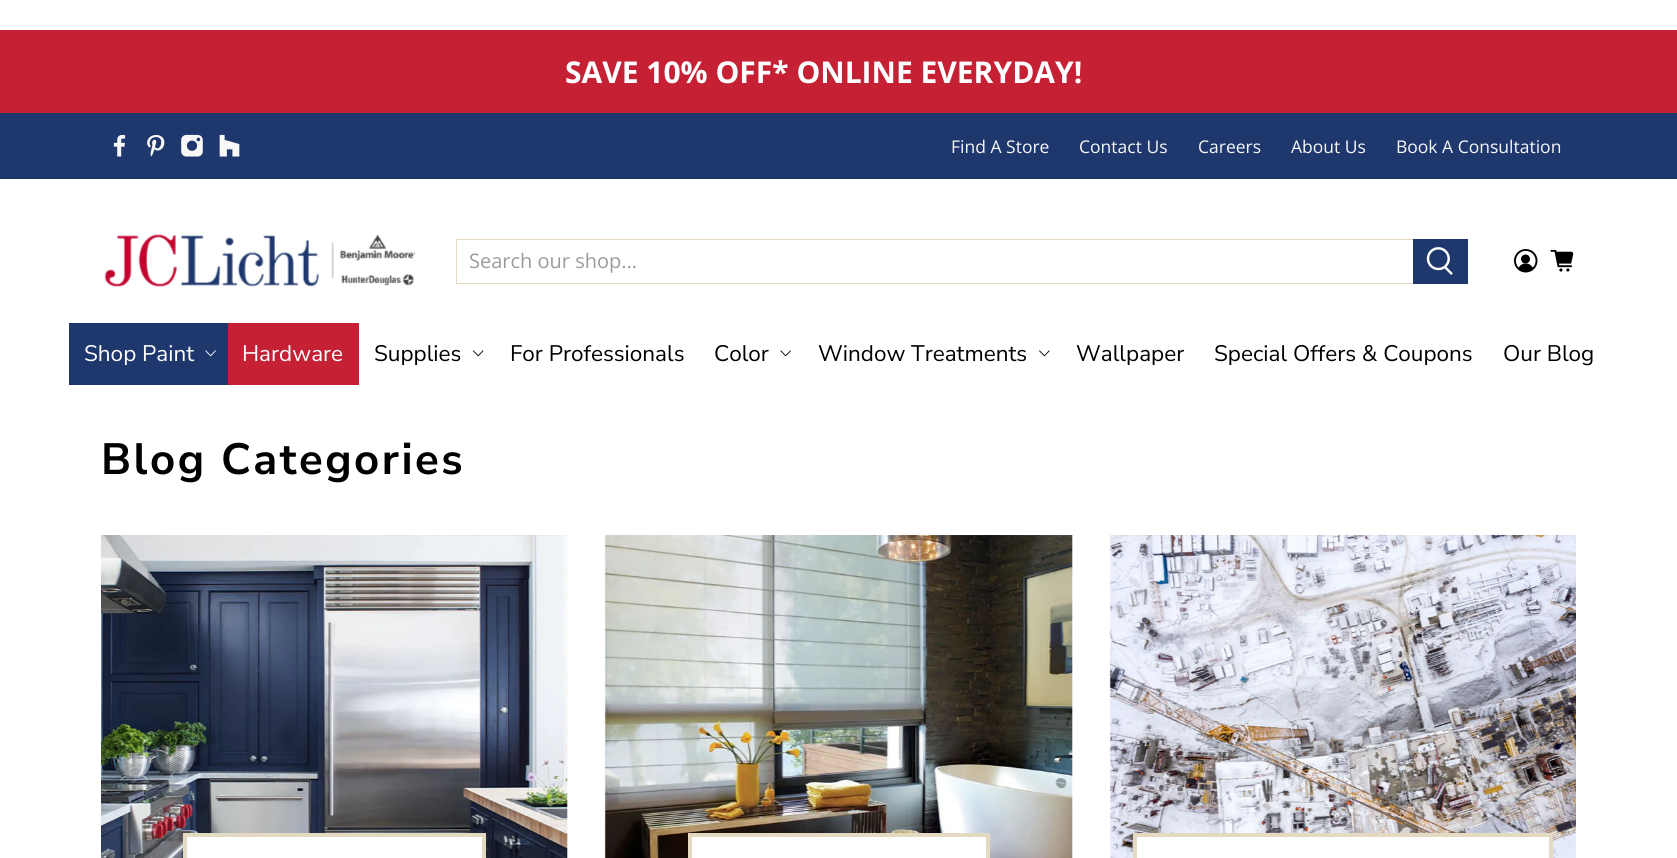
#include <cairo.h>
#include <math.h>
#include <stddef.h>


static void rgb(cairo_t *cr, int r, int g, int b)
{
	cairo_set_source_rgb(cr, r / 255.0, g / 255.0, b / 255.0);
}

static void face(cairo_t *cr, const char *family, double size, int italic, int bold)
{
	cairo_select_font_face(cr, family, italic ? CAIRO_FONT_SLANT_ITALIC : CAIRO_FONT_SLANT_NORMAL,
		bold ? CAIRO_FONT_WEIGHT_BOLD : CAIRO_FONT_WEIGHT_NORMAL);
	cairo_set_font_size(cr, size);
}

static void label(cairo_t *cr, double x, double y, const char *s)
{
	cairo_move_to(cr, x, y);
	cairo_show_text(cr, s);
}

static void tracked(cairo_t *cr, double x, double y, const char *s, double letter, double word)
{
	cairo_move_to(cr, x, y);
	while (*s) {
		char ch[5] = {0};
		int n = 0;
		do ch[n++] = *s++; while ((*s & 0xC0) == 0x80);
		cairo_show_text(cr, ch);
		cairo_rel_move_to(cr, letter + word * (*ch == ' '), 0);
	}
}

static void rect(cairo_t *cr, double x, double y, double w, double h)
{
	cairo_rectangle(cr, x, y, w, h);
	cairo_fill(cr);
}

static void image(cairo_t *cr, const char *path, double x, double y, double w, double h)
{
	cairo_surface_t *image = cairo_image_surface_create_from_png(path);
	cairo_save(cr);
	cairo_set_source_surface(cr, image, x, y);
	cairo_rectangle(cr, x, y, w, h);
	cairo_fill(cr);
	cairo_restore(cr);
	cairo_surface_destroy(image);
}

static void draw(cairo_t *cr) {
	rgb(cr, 255, 255, 255);
	cairo_paint(cr);
	rgb(cr, 197, 32, 51);
	rect(cr, 0, 30, 1677, 83);
	face(cr, "Open Sans", 30, 0, 1);
	rgb(cr, 255, 255, 255);
	label(cr, 565, 83, "SAVE 10% OFF* ONLINE EVERYDAY!");
	rgb(cr, 30, 55, 108);
	rect(cr, 0, 113, 1677, 66);
	image(cr, "image0.png", 113, 134, 13, 23);
	image(cr, "image1.png", 147, 134, 18, 23);
	image(cr, "image2.png", 181, 134, 22, 23);
	image(cr, "image3.png", 219, 134, 21, 23);
	face(cr, "Open Sans", 17.5, 0, 0);
	rgb(cr, 248, 248, 248);
	label(cr, 951, 153, "Find A Store");
	label(cr, 1079, 153, "Contact Us");
	label(cr, 1198, 153, "Careers");
	label(cr, 1291, 153, "About Us");
	label(cr, 1396, 153, "Book A Consultation");
	image(cr, "image4.png", 104, 233, 312, 54);
	cairo_rectangle(cr, 456.5, 239.5, 957, 44);
	rgb(cr, 227, 218, 193);
	cairo_set_line_width(cr, 1);
	cairo_stroke(cr);
	face(cr, "Open Sans", 20, 0, 0);
	rgb(cr, 155, 155, 155);
	label(cr, 469, 268, "Search our shop...");
	rgb(cr, 30, 55, 108);
	rect(cr, 1413, 239, 55, 45);
	image(cr, "image5.png", 1426, 247, 27, 28);
	image(cr, "image6.png", 1514, 249, 24, 24);
	image(cr, "image7.png", 1550, 249, 24, 23);
	rect(cr, 69, 323, 159, 62);
	face(cr, "Nunito Sans", 22.5, 0, 0);
	rgb(cr, 255, 255, 255);
	label(cr, 84, 361, "Shop Paint");
	image(cr, "image8.png", 205, 350, 11, 7);
	rgb(cr, 197, 32, 51);
	rect(cr, 228, 323, 131, 62);
	rgb(cr, 255, 255, 255);
	label(cr, 242, 361, "Hardware");
	rgb(cr, 0, 0, 0);
	label(cr, 374, 361, "Supplies");
	image(cr, "image9.png", 472, 350, 12, 7);
	label(cr, 510, 361, "For Professionals");
	label(cr, 714, 361, "Color");
	image(cr, "image10.png", 780, 350, 11, 7);
	label(cr, 818, 361, "Window Treatments");
	image(cr, "image11.png", 1039, 350, 11, 7);
	label(cr, 1076, 361, "Wallpaper");
	label(cr, 1214, 361, "Special Offers & Coupons");
	label(cr, 1503, 361, "Our Blog");
	face(cr, "Nunito Sans", 43.75, 0, 1);
	tracked(cr, 101, 474, "Blog Categories", 2.5, 0);
	image(cr, "image12.png", 101, 535, 467, 323);
	rgb(cr, 255, 255, 255);
	cairo_rectangle(cr, 185, 835, 299, 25);
	cairo_fill_preserve(cr);
	rgb(cr, 227, 218, 193);
	cairo_set_line_width(cr, 4);
	cairo_stroke(cr);
	image(cr, "image13.png", 604, 535, 469, 323);
	rgb(cr, 255, 255, 255);
	cairo_rectangle(cr, 690, 835, 298, 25);
	cairo_fill_preserve(cr);
	rgb(cr, 227, 218, 193);
	cairo_stroke(cr);
	image(cr, "image14.png", 1109, 535, 467, 323);
	rgb(cr, 255, 255, 255);
	cairo_rectangle(cr, 1135, 835, 416, 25);
	cairo_fill_preserve(cr);
	rgb(cr, 227, 218, 193);
	cairo_stroke(cr);
}

int main(void) {
	cairo_surface_t *surface = cairo_image_surface_create(CAIRO_FORMAT_RGB24, 1677, 858);
	cairo_t *cr = cairo_create(surface);
	cairo_font_options_t *options = cairo_font_options_create();
	cairo_font_options_set_hint_metrics(options, CAIRO_HINT_METRICS_OFF);
	cairo_font_options_set_hint_style(options, CAIRO_HINT_STYLE_NONE);
	cairo_set_font_options(cr, options);
	cairo_set_miter_limit(cr, 4);
	draw(cr);
	cairo_surface_write_to_png(surface, "render.png");
	cairo_font_options_destroy(options);
	cairo_destroy(cr);
	cairo_surface_destroy(surface);
	return 0;
}
